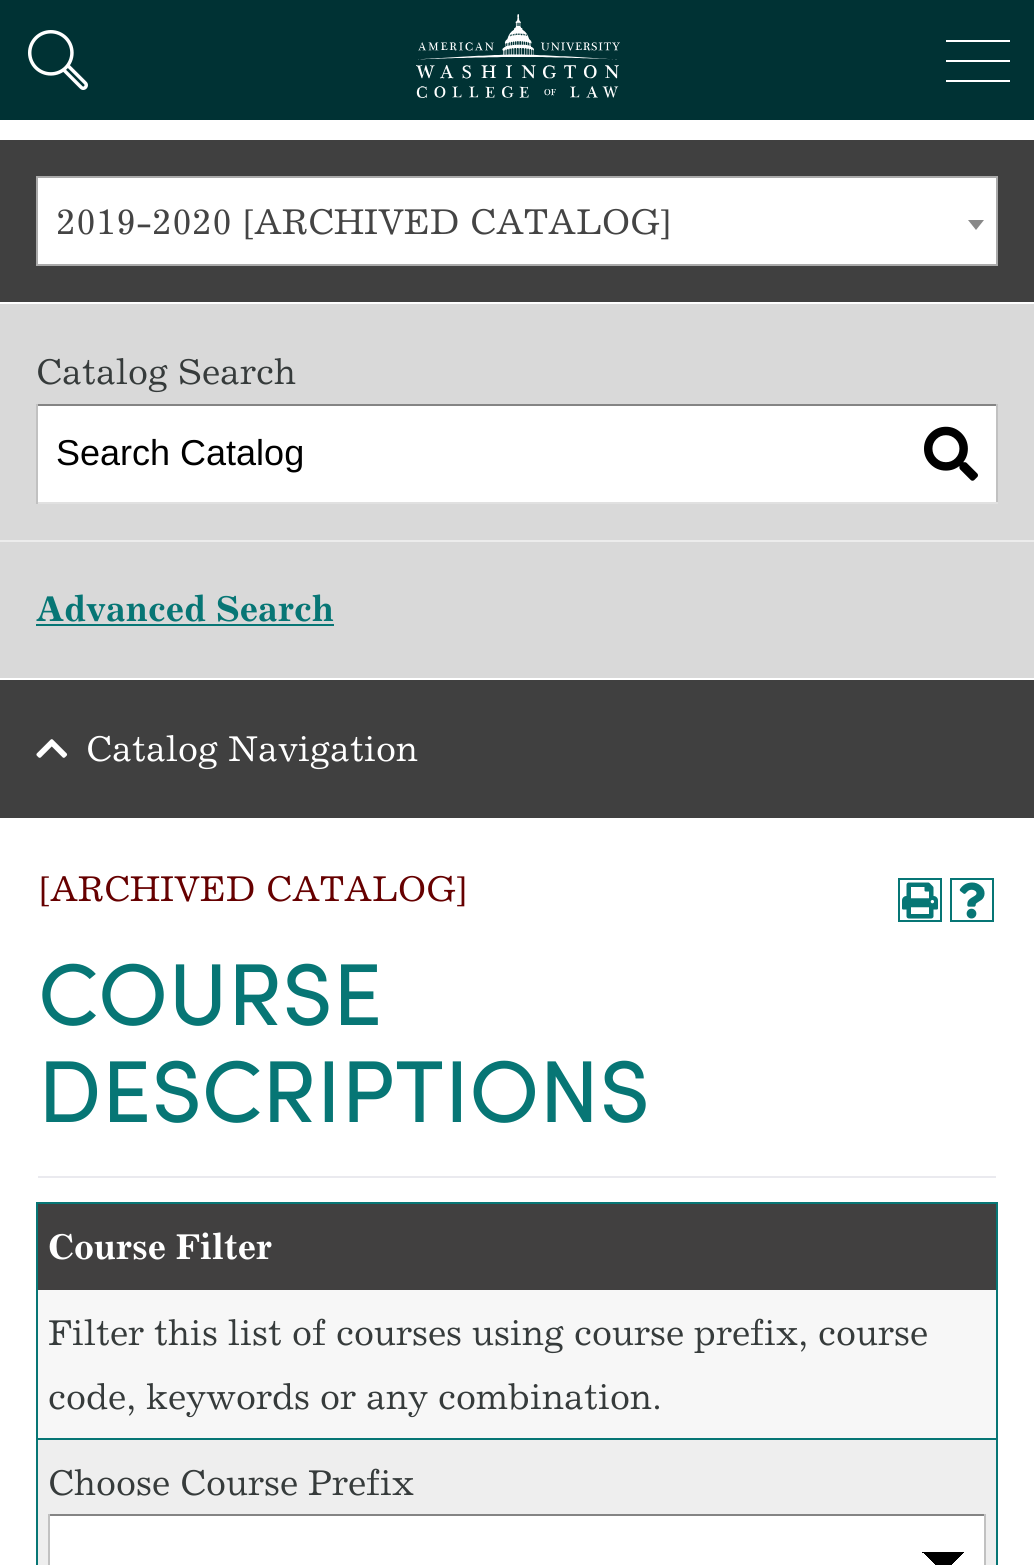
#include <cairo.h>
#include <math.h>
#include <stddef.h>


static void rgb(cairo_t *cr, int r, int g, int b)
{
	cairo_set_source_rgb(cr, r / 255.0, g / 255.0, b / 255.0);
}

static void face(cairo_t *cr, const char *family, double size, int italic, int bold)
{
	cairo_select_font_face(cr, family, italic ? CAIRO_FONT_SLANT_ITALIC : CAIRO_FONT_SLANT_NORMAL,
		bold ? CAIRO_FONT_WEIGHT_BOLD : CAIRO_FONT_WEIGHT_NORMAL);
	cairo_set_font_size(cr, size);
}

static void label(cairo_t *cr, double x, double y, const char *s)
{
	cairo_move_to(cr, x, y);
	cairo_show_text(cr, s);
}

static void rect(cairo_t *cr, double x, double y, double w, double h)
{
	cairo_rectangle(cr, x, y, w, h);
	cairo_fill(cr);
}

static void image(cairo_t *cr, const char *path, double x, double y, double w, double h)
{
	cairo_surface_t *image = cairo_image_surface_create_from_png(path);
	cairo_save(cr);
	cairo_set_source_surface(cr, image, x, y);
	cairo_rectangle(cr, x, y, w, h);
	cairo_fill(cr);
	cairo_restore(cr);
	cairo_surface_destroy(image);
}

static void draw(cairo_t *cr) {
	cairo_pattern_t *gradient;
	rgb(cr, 255, 255, 255);
	cairo_paint(cr);
	rgb(cr, 0, 50, 52);
	rect(cr, 0, 0, 1034, 120);
	image(cr, "image0.png", 416, 14, 204, 84);
	image(cr, "image1.png", 28, 30, 60, 60);
	rgb(cr, 255, 255, 255);
	rect(cr, 946, 60, 64, 2);
	rect(cr, 946, 40, 64, 2);
	rect(cr, 946, 80, 64, 2);
	rgb(cr, 64, 64, 64);
	rect(cr, 0, 140, 1034, 162);
	rgb(cr, 255, 255, 255);
	cairo_rectangle(cr, 37, 177, 960, 88);
	cairo_fill_preserve(cr);
	rgb(cr, 170, 170, 170);
	cairo_stroke(cr);
	face(cr, "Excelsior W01", 36, 0, 0);
	rgb(cr, 68, 68, 68);
	label(cr, 56, 234, "2019-2020 [ARCHIVED CATALOG]");
	rgb(cr, 136, 136, 136);
	cairo_new_path(cr);
	cairo_move_to(cr, 968, 220);
	cairo_line_to(cr, 984, 220);
	cairo_line_to(cr, 976, 230);
	cairo_close_path(cr);
	cairo_fill(cr);
	rgb(cr, 217, 217, 217);
	rect(cr, 0, 304, 1034, 374);
	rgb(cr, 54, 59, 59);
	label(cr, 36, 384, "Catalog Search");
	rgb(cr, 255, 255, 255);
	rect(cr, 38, 406, 958, 96);
	rgb(cr, 132, 132, 132);
	rect(cr, 36, 404, 962, 2);
	rgb(cr, 193, 193, 193);
	rect(cr, 996, 404, 2, 100);
	rgb(cr, 225, 225, 225);
	rect(cr, 36, 502, 962, 2);
	rgb(cr, 193, 193, 193);
	rect(cr, 36, 404, 2, 100);
	face(cr, "Liberation Sans", 36, 0, 0);
	rgb(cr, 0, 0, 0);
	label(cr, 56, 465, "Search Catalog");
	image(cr, "image2.png", 924, 426, 54, 55);
	rgb(cr, 236, 236, 236);
	rect(cr, 0, 540, 1034, 2);
	face(cr, "Excelsior W01", 36, 0, 1);
	rgb(cr, 7, 118, 117);
	label(cr, 36, 621, "Advanced Search");
	rect(cr, 36, 624, 298, 2);
	rgb(cr, 64, 64, 64);
	rect(cr, 0, 680, 1034, 138);
	image(cr, "image3.png", 36, 739, 32, 19);
	face(cr, "Excelsior W01", 36, 0, 0);
	rgb(cr, 255, 255, 255);
	label(cr, 86, 761, "Catalog Navigation");
	rgb(cr, 102, 0, 0);
	label(cr, 38, 901, "[ARCHIVED CATALOG]");
	cairo_rectangle(cr, 899, 879, 42, 42);
	rgb(cr, 7, 118, 117);
	cairo_stroke(cr);
	image(cr, "image4.png", 902, 882, 36, 37);
	cairo_rectangle(cr, 951, 879, 42, 42);
	cairo_stroke(cr);
	image(cr, "image5.png", 959, 882, 26, 37);
	face(cr, "Sofia", 88, 0, 0);
	label(cr, 38, 1025, "COURSE");
	label(cr, 38, 1122, "DESCRIPTIONS");
	rgb(cr, 234, 234, 239);
	rect(cr, 38, 1176, 958, 2);
	cairo_rectangle(cr, 37, 1203, 960, 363);
	rgb(cr, 7, 118, 117);
	cairo_stroke(cr);
	rgb(cr, 65, 64, 64);
	rect(cr, 38, 1204, 958, 86);
	face(cr, "Excelsior W01", 36, 0, 1);
	rgb(cr, 255, 255, 255);
	label(cr, 48, 1259, "Course Filter");
	rgb(cr, 247, 247, 247);
	rect(cr, 38, 1290, 958, 148);
	rgb(cr, 7, 118, 117);
	rect(cr, 38, 1438, 958, 2);
	face(cr, "Excelsior W01", 36, 0, 0);
	rgb(cr, 54, 59, 59);
	label(cr, 48, 1345, "Filter this list of courses using course prefix, course");
	label(cr, 48, 1409, "code, keywords or any combination.");
	rgb(cr, 238, 238, 238);
	rect(cr, 38, 1440, 958, 125);
	rgb(cr, 54, 59, 59);
	label(cr, 48, 1495, "Choose Course Prefix");
	rgb(cr, 255, 255, 255);
	rect(cr, 50, 1516, 934, 49);
	gradient = cairo_pattern_create_linear(943, 1552, 964, 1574);
	cairo_pattern_add_color_stop_rgba(gradient, 0.5, 0, 0, 0, 1);
	cairo_pattern_add_color_stop_rgba(gradient, 0.5, 1, 1, 1, 1);
	cairo_set_source(cr, gradient);
	cairo_pattern_destroy(gradient);
	rect(cr, 944, 1552, 20, 13);
	gradient = cairo_pattern_create_linear(923, 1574, 944, 1552);
	cairo_pattern_add_color_stop_rgba(gradient, 0.5, 0, 0, 0, 0);
	cairo_pattern_add_color_stop_rgba(gradient, 0.5, 0, 0, 0, 1);
	cairo_set_source(cr, gradient);
	cairo_pattern_destroy(gradient);
	rect(cr, 922, 1552, 22, 13);
	rgb(cr, 132, 132, 132);
	rect(cr, 48, 1514, 938, 2);
	rgb(cr, 193, 193, 193);
	rect(cr, 984, 1514, 2, 51);
	rect(cr, 48, 1514, 2, 51);
}

int main(void) {
	cairo_surface_t *surface = cairo_image_surface_create(CAIRO_FORMAT_RGB24, 1034, 1565);
	cairo_t *cr = cairo_create(surface);
	cairo_font_options_t *options = cairo_font_options_create();
	cairo_font_options_set_hint_metrics(options, CAIRO_HINT_METRICS_OFF);
	cairo_font_options_set_hint_style(options, CAIRO_HINT_STYLE_NONE);
	cairo_set_font_options(cr, options);
	cairo_set_miter_limit(cr, 4);
	draw(cr);
	cairo_surface_write_to_png(surface, "render.png");
	cairo_font_options_destroy(options);
	cairo_destroy(cr);
	cairo_surface_destroy(surface);
	return 0;
}
